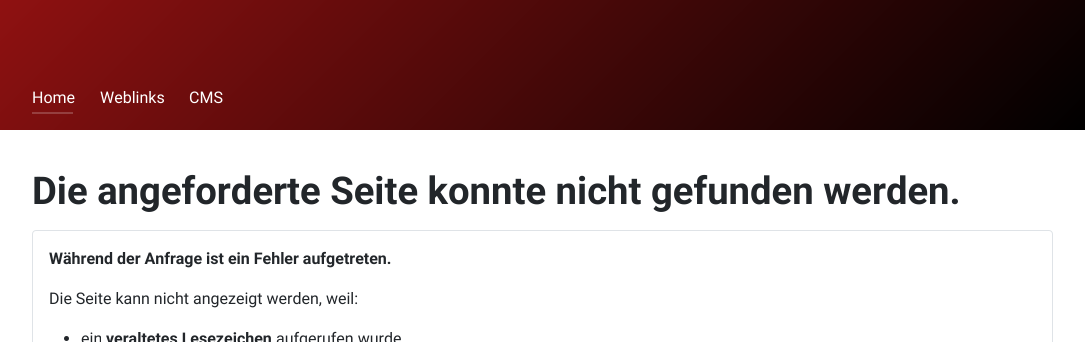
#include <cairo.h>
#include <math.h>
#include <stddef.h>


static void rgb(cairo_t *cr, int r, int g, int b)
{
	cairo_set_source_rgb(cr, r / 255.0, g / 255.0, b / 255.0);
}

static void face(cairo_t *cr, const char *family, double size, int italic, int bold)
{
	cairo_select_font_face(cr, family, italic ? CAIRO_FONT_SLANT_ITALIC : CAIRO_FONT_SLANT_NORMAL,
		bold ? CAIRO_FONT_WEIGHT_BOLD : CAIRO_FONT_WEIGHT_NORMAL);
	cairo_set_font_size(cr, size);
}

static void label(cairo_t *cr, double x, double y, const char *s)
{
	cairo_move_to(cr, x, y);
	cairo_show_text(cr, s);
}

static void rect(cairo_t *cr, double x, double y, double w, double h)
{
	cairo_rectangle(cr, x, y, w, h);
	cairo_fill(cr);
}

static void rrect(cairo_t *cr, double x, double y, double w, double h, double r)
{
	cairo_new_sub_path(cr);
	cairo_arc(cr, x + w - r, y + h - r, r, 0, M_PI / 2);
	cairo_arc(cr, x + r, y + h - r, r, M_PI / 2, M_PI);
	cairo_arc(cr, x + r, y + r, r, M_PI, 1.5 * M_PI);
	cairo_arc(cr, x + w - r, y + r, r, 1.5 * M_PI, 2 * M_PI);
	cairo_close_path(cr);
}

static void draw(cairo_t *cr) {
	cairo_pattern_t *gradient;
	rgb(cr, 255, 255, 255);
	cairo_paint(cr);
	gradient = cairo_pattern_create_linear(239, -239, 846, 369);
	cairo_pattern_add_color_stop_rgba(gradient, 0, 0.561, 0.067, 0.067, 1);
	cairo_pattern_add_color_stop_rgba(gradient, 1, 0, 0, 0, 1);
	cairo_set_source(cr, gradient);
	cairo_pattern_destroy(gradient);
	rect(cr, 0, 0, 1085, 130);
	gradient = cairo_pattern_create_linear(239, -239, 846, 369);
	cairo_pattern_add_color_stop_rgba(gradient, 0, 0.647, 0.255, 0.255, 1);
	cairo_pattern_add_color_stop_rgba(gradient, 1, 0.2, 0.2, 0.2, 1);
	cairo_set_source(cr, gradient);
	cairo_pattern_destroy(gradient);
	rect(cr, 32, 112, 41, 2);
	face(cr, "Roboto", 16, 0, 0);
	rgb(cr, 255, 255, 255);
	label(cr, 32, 103, "Home");
	label(cr, 100, 103, "Weblinks");
	label(cr, 189, 103, "CMS");
	face(cr, "Roboto", 38.25, 0, 1);
	rgb(cr, 34, 38, 42);
	label(cr, 32, 204, "Die angeforderte Seite konnte nicht gefunden werden.");
	rrect(cr, 32.5, 230.5, 1020, 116, 3.5);
	rgb(cr, 223, 227, 231);
	cairo_set_line_width(cr, 1);
	cairo_stroke(cr);
	face(cr, "Roboto", 16, 0, 1);
	rgb(cr, 34, 38, 42);
	label(cr, 49, 264, "Während der Anfrage ist ein Fehler aufgetreten.");
	face(cr, "Roboto", 16, 0, 0);
	label(cr, 49, 304, "Die Seite kann nicht angezeigt werden, weil:");
	cairo_new_path(cr);
	cairo_arc(cr, 66.5, 338.5, 2.5, 0, 2 * M_PI);
	cairo_fill(cr);
	label(cr, 81, 344, "ein");
	face(cr, "Roboto", 16, 0, 1);
	label(cr, 106, 344, "veraltetes Lesezeichen");
	face(cr, "Roboto", 16, 0, 0);
	label(cr, 276, 344, "aufgerufen wurde");
}

int main(void) {
	cairo_surface_t *surface = cairo_image_surface_create(CAIRO_FORMAT_RGB24, 1085, 342);
	cairo_t *cr = cairo_create(surface);
	cairo_font_options_t *options = cairo_font_options_create();
	cairo_font_options_set_hint_metrics(options, CAIRO_HINT_METRICS_OFF);
	cairo_font_options_set_hint_style(options, CAIRO_HINT_STYLE_NONE);
	cairo_set_font_options(cr, options);
	cairo_set_miter_limit(cr, 4);
	draw(cr);
	cairo_surface_write_to_png(surface, "render.png");
	cairo_font_options_destroy(options);
	cairo_destroy(cr);
	cairo_surface_destroy(surface);
	return 0;
}
